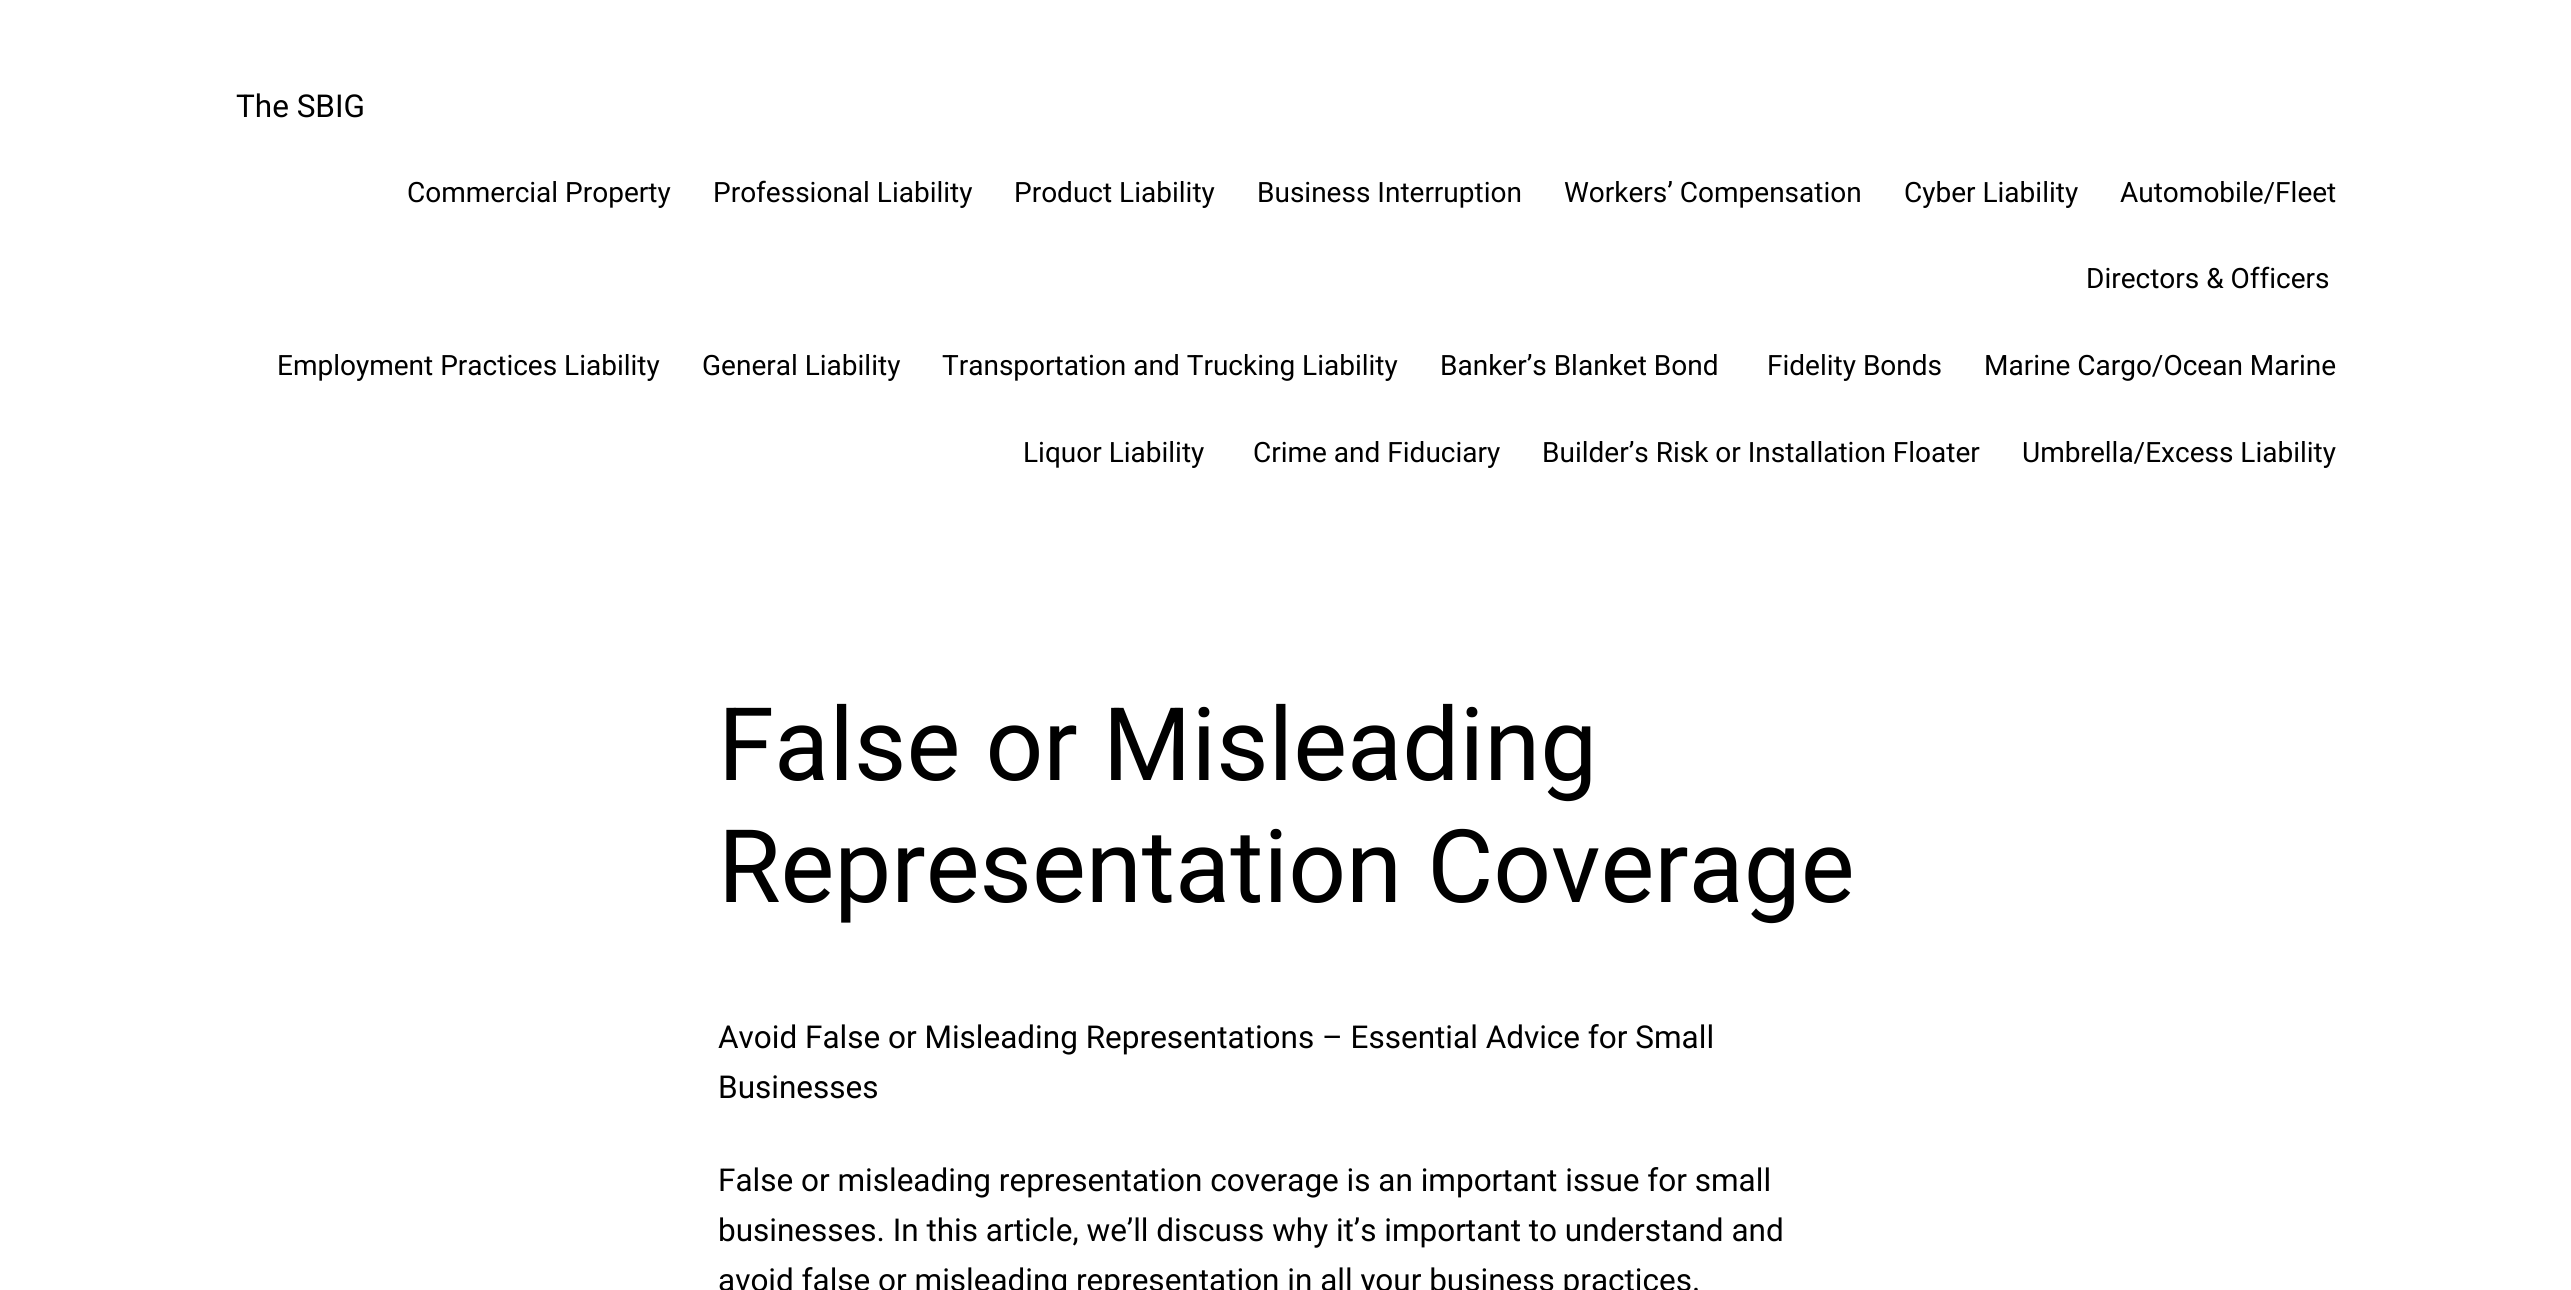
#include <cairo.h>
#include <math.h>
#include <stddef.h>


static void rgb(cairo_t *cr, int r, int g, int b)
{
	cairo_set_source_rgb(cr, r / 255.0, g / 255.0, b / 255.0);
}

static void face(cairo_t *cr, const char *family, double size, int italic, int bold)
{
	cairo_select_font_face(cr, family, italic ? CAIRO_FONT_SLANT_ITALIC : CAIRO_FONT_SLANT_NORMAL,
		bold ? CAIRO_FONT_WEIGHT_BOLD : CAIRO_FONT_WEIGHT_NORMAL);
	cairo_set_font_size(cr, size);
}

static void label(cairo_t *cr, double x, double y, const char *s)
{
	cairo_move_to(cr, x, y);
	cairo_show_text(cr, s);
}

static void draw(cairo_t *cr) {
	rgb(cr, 255, 255, 255);
	cairo_paint(cr);
	face(cr, "Roboto", 31.5, 0, 0);
	rgb(cr, 0, 0, 0);
	label(cr, 236, 117, "The SBIG");
	face(cr, "Roboto", 28, 0, 0);
	label(cr, 407, 202, "Commercial Property");
	label(cr, 713, 202, "Professional Liability");
	label(cr, 1014, 202, "Product Liability");
	label(cr, 1257, 202, "Business Interruption");
	label(cr, 1564, 202, "Workers’ Compensation");
	label(cr, 1904, 202, "Cyber Liability");
	label(cr, 2120, 202, "Automobile/Fleet");
	label(cr, 2086, 288, "Directors & Officers");
	label(cr, 277, 375, "Employment Practices Liability");
	label(cr, 702, 375, "General Liability");
	label(cr, 942, 375, "Transportation and Trucking Liability");
	label(cr, 1440, 375, "Banker’s Blanket Bond");
	label(cr, 1767, 375, "Fidelity Bonds");
	label(cr, 1984, 375, "Marine Cargo/Ocean Marine");
	label(cr, 1023, 462, "Liquor Liability");
	label(cr, 1253, 462, "Crime and Fiduciary");
	label(cr, 1542, 462, "Builder’s Risk or Installation Floater");
	label(cr, 2022, 462, "Umbrella/Excess Liability");
	face(cr, "Roboto", 101.5, 0, 0);
	label(cr, 718, 780, "False or Misleading");
	label(cr, 718, 902, "Representation Coverage");
	face(cr, "Roboto", 31.5, 0, 0);
	label(cr, 718, 1048, "Avoid False or Misleading Representations – Essential Advice for Small");
	label(cr, 718, 1098, "Businesses");
	label(cr, 718, 1191, "False or misleading representation coverage is an important issue for small");
	label(cr, 718, 1241, "businesses. In this article, we’ll discuss why it’s important to understand and");
	label(cr, 718, 1291, "avoid false or misleading representation in all your business practices.");
}

int main(void) {
	cairo_surface_t *surface = cairo_image_surface_create(CAIRO_FORMAT_RGB24, 2571, 1290);
	cairo_t *cr = cairo_create(surface);
	cairo_font_options_t *options = cairo_font_options_create();
	cairo_font_options_set_hint_metrics(options, CAIRO_HINT_METRICS_OFF);
	cairo_font_options_set_hint_style(options, CAIRO_HINT_STYLE_NONE);
	cairo_set_font_options(cr, options);
	cairo_set_miter_limit(cr, 4);
	draw(cr);
	cairo_surface_write_to_png(surface, "render.png");
	cairo_font_options_destroy(options);
	cairo_destroy(cr);
	cairo_surface_destroy(surface);
	return 0;
}
